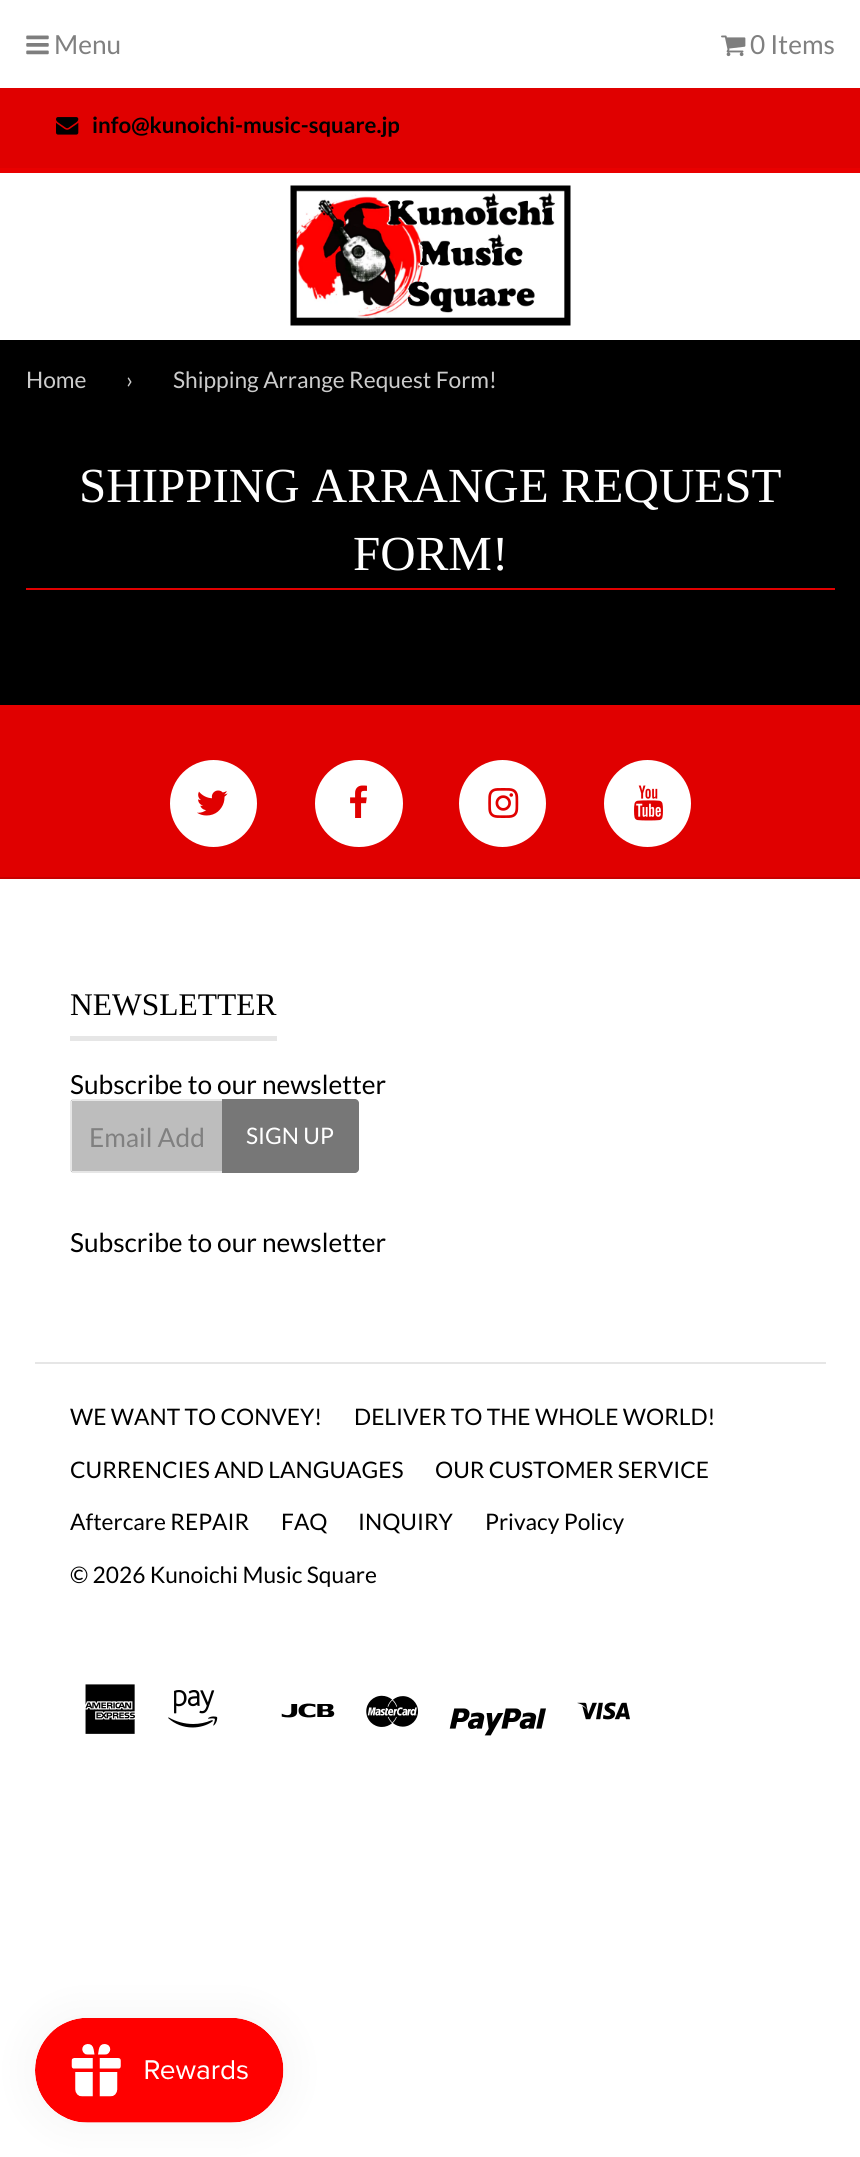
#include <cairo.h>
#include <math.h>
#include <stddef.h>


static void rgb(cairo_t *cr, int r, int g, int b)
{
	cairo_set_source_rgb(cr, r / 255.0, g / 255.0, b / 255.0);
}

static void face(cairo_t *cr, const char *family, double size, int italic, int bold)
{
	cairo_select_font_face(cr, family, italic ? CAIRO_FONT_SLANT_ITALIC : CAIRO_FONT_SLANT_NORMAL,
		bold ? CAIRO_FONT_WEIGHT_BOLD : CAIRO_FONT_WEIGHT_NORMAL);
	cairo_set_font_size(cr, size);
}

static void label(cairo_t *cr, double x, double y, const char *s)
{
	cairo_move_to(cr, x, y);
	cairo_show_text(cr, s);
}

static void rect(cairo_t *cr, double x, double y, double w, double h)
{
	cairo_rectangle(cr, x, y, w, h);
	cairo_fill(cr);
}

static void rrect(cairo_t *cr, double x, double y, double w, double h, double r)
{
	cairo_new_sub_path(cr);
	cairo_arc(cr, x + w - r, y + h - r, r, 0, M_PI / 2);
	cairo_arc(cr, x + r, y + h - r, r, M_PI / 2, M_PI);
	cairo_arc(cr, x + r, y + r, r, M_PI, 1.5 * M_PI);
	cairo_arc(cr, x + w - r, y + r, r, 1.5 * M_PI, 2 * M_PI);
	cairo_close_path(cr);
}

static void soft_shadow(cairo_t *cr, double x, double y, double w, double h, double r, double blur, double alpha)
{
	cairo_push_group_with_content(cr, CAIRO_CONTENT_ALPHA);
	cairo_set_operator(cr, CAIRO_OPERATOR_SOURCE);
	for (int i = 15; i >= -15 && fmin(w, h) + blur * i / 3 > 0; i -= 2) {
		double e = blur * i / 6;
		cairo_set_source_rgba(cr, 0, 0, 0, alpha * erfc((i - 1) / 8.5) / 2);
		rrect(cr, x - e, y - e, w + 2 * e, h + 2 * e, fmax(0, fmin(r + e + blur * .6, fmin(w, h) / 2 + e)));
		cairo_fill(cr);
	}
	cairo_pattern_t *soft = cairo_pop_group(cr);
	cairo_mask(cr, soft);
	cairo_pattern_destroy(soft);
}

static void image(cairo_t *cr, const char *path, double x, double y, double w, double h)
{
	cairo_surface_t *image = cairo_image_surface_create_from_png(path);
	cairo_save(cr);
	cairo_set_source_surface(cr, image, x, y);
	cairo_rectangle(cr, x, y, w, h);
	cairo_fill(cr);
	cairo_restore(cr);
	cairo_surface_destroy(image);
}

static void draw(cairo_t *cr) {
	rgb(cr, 255, 255, 255);
	cairo_paint(cr);
	rgb(cr, 0, 0, 0);
	rect(cr, 0, 340, 860, 365);
	image(cr, "image0.png", 26, 35, 23, 20);
	face(cr, "Lato", 26.25, 0, 0);
	rgb(cr, 128, 128, 128);
	label(cr, 54, 54, "Menu");
	image(cr, "image1.png", 721, 35, 25, 22);
	label(cr, 750, 54, "0 Items");
	rgb(cr, 224, 0, 0);
	rect(cr, 0, 88, 860, 80);
	rgb(cr, 233, 0, 0);
	rect(cr, 0, 168, 860, 5);
	image(cr, "image2.png", 56, 117, 23, 18);
	face(cr, "Lato", 22.25, 0, 1);
	rgb(cr, 0, 0, 0);
	label(cr, 92, 133, "info@kunoichi-music-square.jp");
	image(cr, "image3.png", 290, 185, 281, 141);
	face(cr, "Lato", 22.75, 0, 0);
	rgb(cr, 204, 204, 204);
	label(cr, 26, 388, "Home");
	label(cr, 126, 388, "›");
	label(cr, 173, 388, "Shipping Arrange Request Form!");
	rgb(cr, 224, 0, 0);
	rect(cr, 26, 588, 809, 2);
	face(cr, "Liberation Serif", 49, 0, 0);
	rgb(cr, 255, 255, 255);
	label(cr, 79, 502, "SHIPPING ARRANGE REQUEST");
	label(cr, 353, 570, "FORM!");
	rgb(cr, 224, 0, 0);
	rect(cr, 0, 710, 860, 167);
	rgb(cr, 233, 0, 0);
	rect(cr, 0, 705, 860, 5);
	rgb(cr, 199, 0, 0);
	rect(cr, 0, 877, 860, 2);
	rgb(cr, 255, 255, 255);
	cairo_new_path(cr);
	cairo_arc(cr, 213.5, 803.5, 43.5, 0, 2 * M_PI);
	cairo_fill(cr);
	image(cr, "image4.png", 197, 790, 31, 26);
	rrect(cr, 315, 760, 88, 87, 43.5);
	cairo_fill(cr);
	image(cr, "image5.png", 350, 785, 17, 33);
	cairo_arc(cr, 502.5, 803.5, 43.5, 0, 2 * M_PI);
	cairo_fill(cr);
	image(cr, "image6.png", 488, 788, 31, 30);
	cairo_arc(cr, 647.5, 803.5, 43.5, 0, 2 * M_PI);
	cairo_fill(cr);
	image(cr, "image7.png", 634, 785, 29, 36);
	rgb(cr, 230, 230, 230);
	rect(cr, 70, 1036, 207, 5);
	face(cr, "Liberation Serif", 31.5, 0, 0);
	rgb(cr, 0, 0, 0);
	label(cr, 70, 1015, "NEWSLETTER");
	face(cr, "Lato", 26.25, 0, 0);
	label(cr, 70, 1094, "Subscribe to our newsletter");
	rgb(cr, 189, 189, 189);
	cairo_new_path(cr);
	cairo_move_to(cr, 74, 1099);
	cairo_line_to(cr, 222, 1099);
	cairo_line_to(cr, 222, 1173);
	cairo_line_to(cr, 74, 1173);
	cairo_curve_to(cr, 72, 1173, 70, 1171, 70, 1169);
	cairo_line_to(cr, 70, 1103);
	cairo_curve_to(cr, 70, 1101, 72, 1099, 74, 1099);
	cairo_close_path(cr);
	cairo_fill(cr);
	rgb(cr, 230, 230, 230);
	rect(cr, 72, 1099, 150, 2);
	rect(cr, 72, 1171, 150, 2);
	rect(cr, 70, 1101, 2, 70);
	rgb(cr, 128, 128, 128);
	label(cr, 89, 1147, "Email Add");
	rgb(cr, 119, 119, 119);
	cairo_new_path(cr);
	cairo_move_to(cr, 222, 1099);
	cairo_line_to(cr, 355, 1099);
	cairo_curve_to(cr, 357, 1099, 359, 1101, 359, 1103);
	cairo_line_to(cr, 359, 1169);
	cairo_curve_to(cr, 359, 1171, 357, 1173, 355, 1173);
	cairo_line_to(cr, 222, 1173);
	cairo_close_path(cr);
	cairo_fill(cr);
	face(cr, "Lato", 22.75, 0, 0);
	rgb(cr, 255, 255, 255);
	label(cr, 246, 1144, "SIGN UP");
	face(cr, "Lato", 26.25, 0, 0);
	rgb(cr, 0, 0, 0);
	label(cr, 70, 1252, "Subscribe to our newsletter");
	rgb(cr, 230, 230, 230);
	rect(cr, 35, 1362, 791, 2);
	face(cr, "Lato", 22.75, 0, 0);
	rgb(cr, 0, 0, 0);
	label(cr, 70, 1425, "WE WANT TO CONVEY!");
	label(cr, 354, 1425, "DELIVER TO THE WHOLE WORLD!");
	label(cr, 70, 1478, "CURRENCIES AND LANGUAGES");
	label(cr, 435, 1478, "OUR CUSTOMER SERVICE");
	label(cr, 70, 1530, "Aftercare REPAIR");
	label(cr, 281, 1530, "FAQ");
	label(cr, 358, 1530, "INQUIRY");
	label(cr, 485, 1530, "Privacy Policy");
	label(cr, 70, 1583, "© 2026 Kunoichi Music Square");
	image(cr, "image8.png", 85, 1684, 50, 50);
	image(cr, "image9.png", 168, 1690, 50, 38);
	image(cr, "image10.png", 281, 1703, 54, 15);
	image(cr, "image11.png", 366, 1695, 53, 32);
	image(cr, "image12.png", 449, 1708, 97, 28);
	image(cr, "image13.png", 577, 1702, 53, 18);
	rgb(cr, 0, 0, 0);
	soft_shadow(cr, 35, 2018, 249, 105, 52.5, 22, 0.05);
	image(cr, "image14.png", 35, 2018, 249, 105);
}

int main(void) {
	cairo_surface_t *surface = cairo_image_surface_create(CAIRO_FORMAT_RGB24, 860, 2157);
	cairo_t *cr = cairo_create(surface);
	cairo_font_options_t *options = cairo_font_options_create();
	cairo_font_options_set_hint_metrics(options, CAIRO_HINT_METRICS_OFF);
	cairo_font_options_set_hint_style(options, CAIRO_HINT_STYLE_NONE);
	cairo_set_font_options(cr, options);
	cairo_set_miter_limit(cr, 4);
	draw(cr);
	cairo_surface_write_to_png(surface, "render.png");
	cairo_font_options_destroy(options);
	cairo_destroy(cr);
	cairo_surface_destroy(surface);
	return 0;
}
